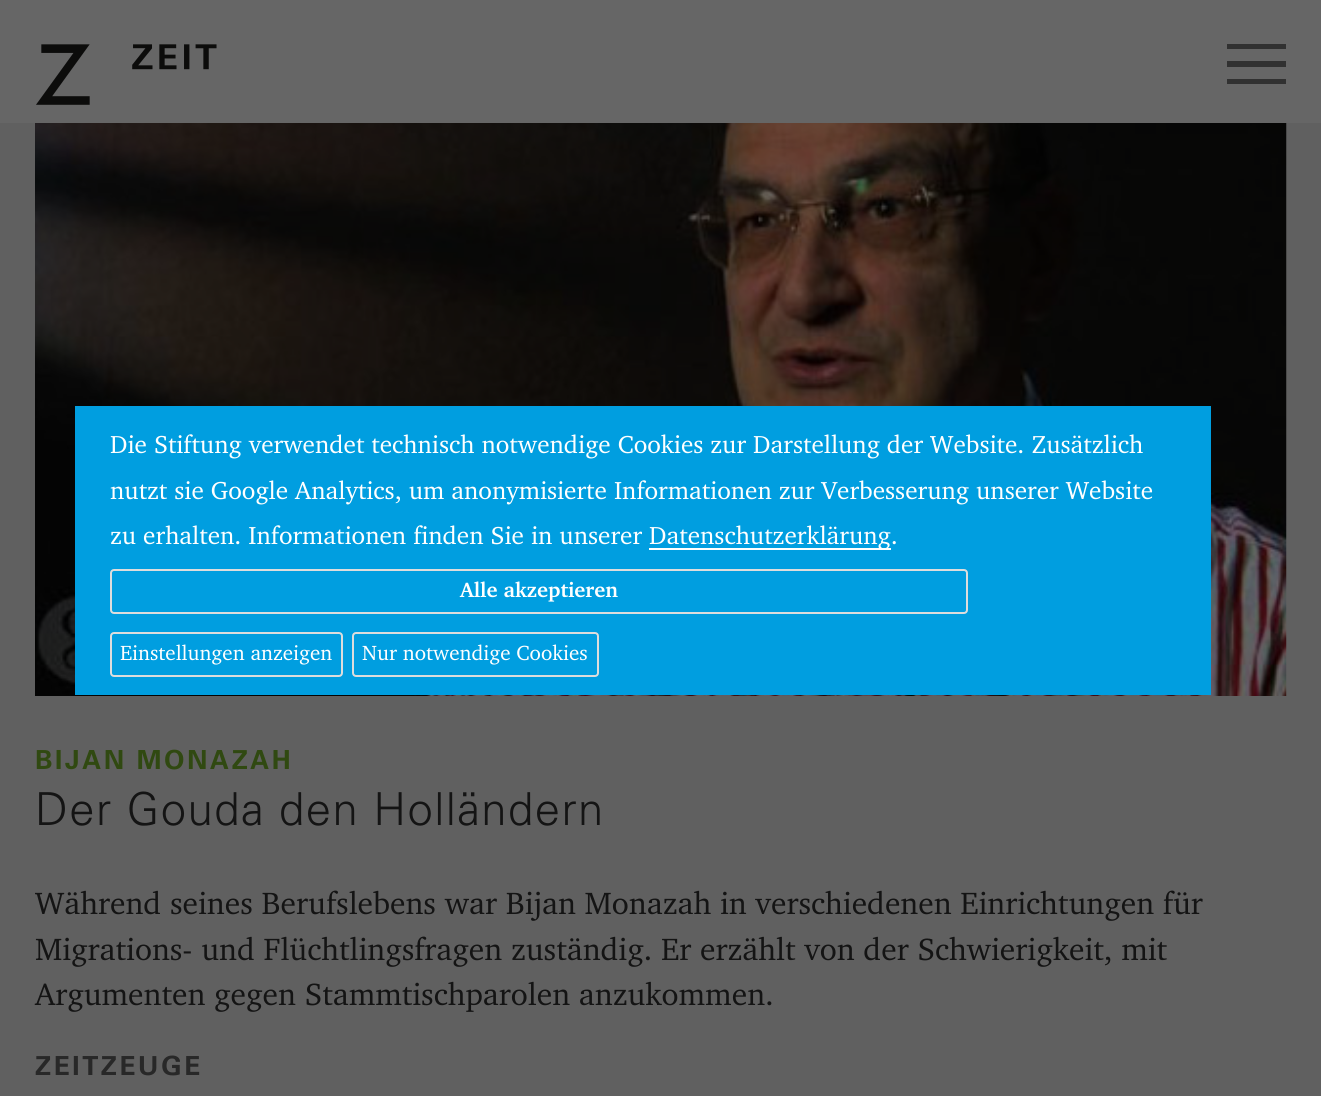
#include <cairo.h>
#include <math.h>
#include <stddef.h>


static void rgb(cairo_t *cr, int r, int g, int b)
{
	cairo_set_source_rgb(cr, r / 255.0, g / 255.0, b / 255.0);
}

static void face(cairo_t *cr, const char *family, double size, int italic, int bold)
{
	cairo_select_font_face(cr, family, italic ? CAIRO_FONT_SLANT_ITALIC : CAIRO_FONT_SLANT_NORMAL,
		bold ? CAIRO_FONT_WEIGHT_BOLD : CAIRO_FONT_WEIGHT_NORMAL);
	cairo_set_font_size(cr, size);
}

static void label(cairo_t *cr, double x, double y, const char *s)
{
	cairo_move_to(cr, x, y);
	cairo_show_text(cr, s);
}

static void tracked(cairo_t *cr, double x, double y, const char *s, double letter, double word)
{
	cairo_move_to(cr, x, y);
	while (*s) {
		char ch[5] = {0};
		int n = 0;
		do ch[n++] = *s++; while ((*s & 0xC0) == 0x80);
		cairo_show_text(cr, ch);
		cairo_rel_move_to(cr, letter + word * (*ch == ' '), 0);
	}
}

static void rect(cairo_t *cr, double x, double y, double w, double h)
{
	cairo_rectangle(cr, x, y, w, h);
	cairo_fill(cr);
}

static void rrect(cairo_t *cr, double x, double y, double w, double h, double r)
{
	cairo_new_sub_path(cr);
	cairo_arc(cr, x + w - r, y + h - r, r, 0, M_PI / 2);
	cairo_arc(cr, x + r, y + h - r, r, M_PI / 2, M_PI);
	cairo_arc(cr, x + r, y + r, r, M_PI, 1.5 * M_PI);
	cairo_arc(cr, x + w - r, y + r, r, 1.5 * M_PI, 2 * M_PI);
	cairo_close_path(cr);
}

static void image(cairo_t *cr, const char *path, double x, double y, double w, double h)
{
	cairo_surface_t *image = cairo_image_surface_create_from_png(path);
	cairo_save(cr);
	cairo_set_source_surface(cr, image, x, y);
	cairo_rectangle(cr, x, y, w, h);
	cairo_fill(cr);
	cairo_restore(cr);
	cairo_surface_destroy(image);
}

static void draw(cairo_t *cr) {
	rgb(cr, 96, 96, 96);
	cairo_paint(cr);
	rgb(cr, 102, 102, 102);
	rect(cr, 0, 0, 1321, 123);
	image(cr, "image0.png", 36, 44, 181, 61);
	rgb(cr, 49, 49, 49);
	rect(cr, 1227, 44, 59, 5);
	rect(cr, 1227, 61, 59, 6);
	rect(cr, 1227, 79, 59, 5);
	image(cr, "image1.png", 35, 123, 1252, 573);
	rgb(cr, 0, 158, 224);
	rect(cr, 75, 406, 1136, 289);
	face(cr, "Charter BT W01", 25.2, 0, 0);
	rgb(cr, 255, 255, 255);
	label(cr, 110, 453, "Die Stiftung verwendet technisch notwendige Cookies zur Darstellung der Website. Zusätzlich");
	label(cr, 110, 499, "nutzt sie Google Analytics, um anonymisierte Informationen zur Verbesserung unserer Website");
	label(cr, 110, 544, "zu erhalten. Informationen finden Sie in unserer");
	rect(cr, 649, 548, 242, 2);
	label(cr, 649, 544, "Datenschutzerklärung.");
	rrect(cr, 111, 570, 856, 43, 3);
	rgb(cr, 221, 221, 221);
	cairo_stroke(cr);
	face(cr, "Charter BT W01", 21, 0, 1);
	rgb(cr, 255, 255, 255);
	label(cr, 460, 597, "Alle akzeptieren");
	rrect(cr, 111, 633, 231, 43, 3);
	rgb(cr, 221, 221, 221);
	cairo_stroke(cr);
	face(cr, "Charter BT W01", 21, 0, 0);
	rgb(cr, 255, 255, 255);
	label(cr, 120, 660, "Einstellungen anzeigen");
	rrect(cr, 353, 633, 245, 43, 3);
	rgb(cr, 221, 221, 221);
	cairo_stroke(cr);
	rgb(cr, 255, 255, 255);
	label(cr, 362, 660, "Nur notwendige Cookies");
	face(cr, "Univers", 26.25, 0, 1);
	rgb(cr, 48, 73, 17);
	tracked(cr, 35, 769, "BIJAN MONAZAH", 2.6, 0);
	face(cr, "Univers Light", 45.5, 0, 0);
	rgb(cr, 20, 20, 20);
	tracked(cr, 35, 825, "Der Gouda den Holländern", 1.4, 0);
	face(cr, "Charter BT W01", 31.5, 0, 0);
	label(cr, 35, 914, "Während seines Berufslebens war Bijan Monazah in verschiedenen Einrichtungen für");
	label(cr, 35, 960, "Migrations- und Flüchtlingsfragen zuständig. Er erzählt von der Schwierigkeit, mit");
	label(cr, 35, 1005, "Argumenten gegen Stammtischparolen anzukommen.");
	face(cr, "Univers", 26.25, 0, 1);
	rgb(cr, 40, 40, 40);
	tracked(cr, 35, 1075, "ZEITZEUGE", 2.6, 0);
}

int main(void) {
	cairo_surface_t *surface = cairo_image_surface_create(CAIRO_FORMAT_RGB24, 1321, 1096);
	cairo_t *cr = cairo_create(surface);
	cairo_font_options_t *options = cairo_font_options_create();
	cairo_font_options_set_hint_metrics(options, CAIRO_HINT_METRICS_OFF);
	cairo_font_options_set_hint_style(options, CAIRO_HINT_STYLE_NONE);
	cairo_set_font_options(cr, options);
	cairo_set_miter_limit(cr, 4);
	draw(cr);
	cairo_surface_write_to_png(surface, "render.png");
	cairo_font_options_destroy(options);
	cairo_destroy(cr);
	cairo_surface_destroy(surface);
	return 0;
}
